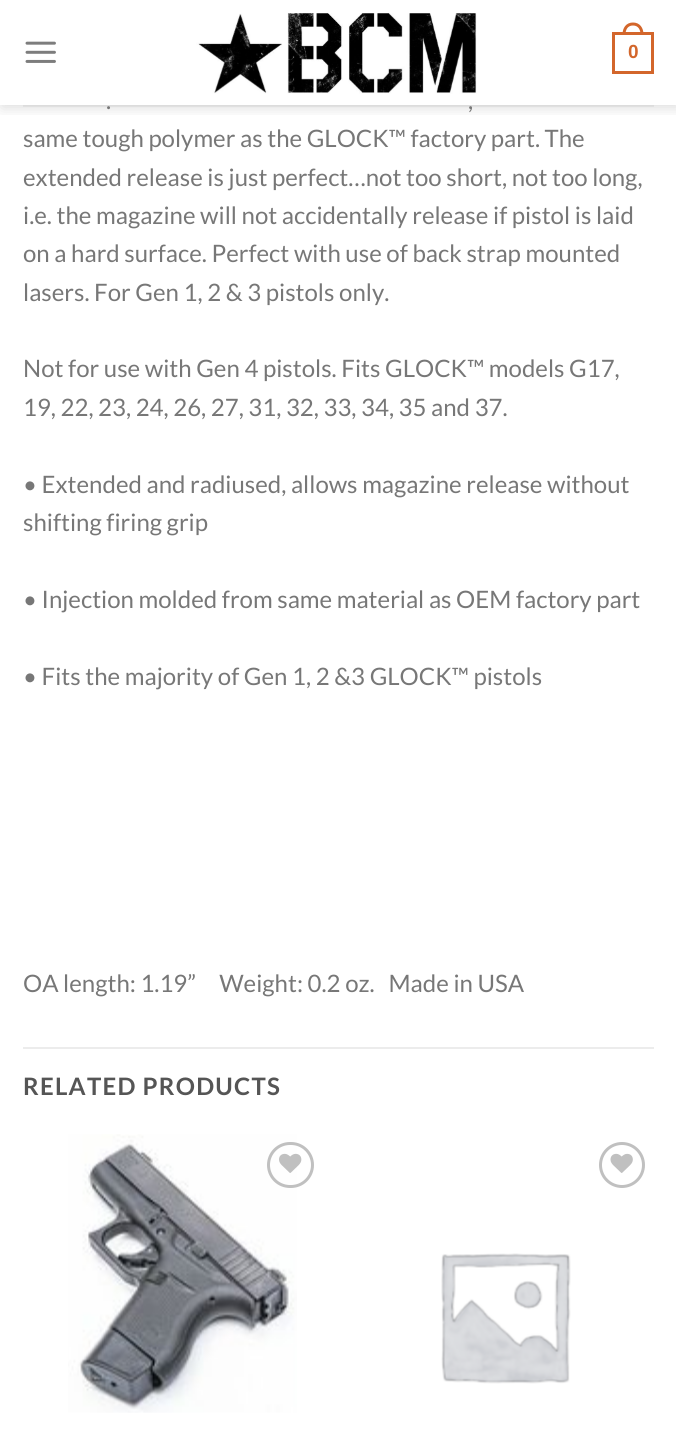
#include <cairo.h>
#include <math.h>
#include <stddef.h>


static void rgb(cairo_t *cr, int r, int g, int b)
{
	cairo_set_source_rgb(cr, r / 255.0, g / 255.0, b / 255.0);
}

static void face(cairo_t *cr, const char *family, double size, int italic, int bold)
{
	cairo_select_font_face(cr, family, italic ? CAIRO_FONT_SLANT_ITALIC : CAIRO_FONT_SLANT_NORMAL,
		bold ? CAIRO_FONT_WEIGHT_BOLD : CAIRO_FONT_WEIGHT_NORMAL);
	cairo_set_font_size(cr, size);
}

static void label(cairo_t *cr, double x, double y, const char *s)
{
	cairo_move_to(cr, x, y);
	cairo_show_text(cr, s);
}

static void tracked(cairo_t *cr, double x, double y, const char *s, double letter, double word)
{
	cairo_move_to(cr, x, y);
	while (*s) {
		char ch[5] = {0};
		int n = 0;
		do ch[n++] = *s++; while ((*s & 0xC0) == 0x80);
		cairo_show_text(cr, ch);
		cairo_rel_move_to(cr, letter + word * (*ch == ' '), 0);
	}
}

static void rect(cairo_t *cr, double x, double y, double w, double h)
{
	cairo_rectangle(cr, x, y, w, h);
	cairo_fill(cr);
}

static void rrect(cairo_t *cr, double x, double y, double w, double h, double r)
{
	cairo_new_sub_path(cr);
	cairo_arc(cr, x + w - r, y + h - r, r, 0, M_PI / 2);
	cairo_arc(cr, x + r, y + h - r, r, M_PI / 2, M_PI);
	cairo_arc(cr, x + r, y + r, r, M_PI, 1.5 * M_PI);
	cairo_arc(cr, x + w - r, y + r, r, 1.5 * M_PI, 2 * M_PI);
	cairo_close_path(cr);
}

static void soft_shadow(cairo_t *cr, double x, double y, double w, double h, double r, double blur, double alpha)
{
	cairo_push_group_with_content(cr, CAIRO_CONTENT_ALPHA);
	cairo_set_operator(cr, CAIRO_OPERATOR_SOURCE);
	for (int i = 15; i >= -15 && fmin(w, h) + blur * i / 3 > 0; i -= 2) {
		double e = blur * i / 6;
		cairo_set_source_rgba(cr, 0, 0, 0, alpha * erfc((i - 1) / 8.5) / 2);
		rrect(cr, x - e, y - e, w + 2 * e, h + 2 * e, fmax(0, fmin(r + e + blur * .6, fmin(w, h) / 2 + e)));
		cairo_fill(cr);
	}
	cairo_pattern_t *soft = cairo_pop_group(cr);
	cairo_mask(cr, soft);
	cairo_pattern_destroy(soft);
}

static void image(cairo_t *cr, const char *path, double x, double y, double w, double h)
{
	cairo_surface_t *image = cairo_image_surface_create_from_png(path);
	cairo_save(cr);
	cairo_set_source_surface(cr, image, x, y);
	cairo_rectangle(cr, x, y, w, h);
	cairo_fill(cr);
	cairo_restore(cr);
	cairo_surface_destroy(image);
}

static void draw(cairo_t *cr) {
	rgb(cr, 255, 255, 255);
	cairo_paint(cr);
	cairo_save(cr);
	cairo_rectangle(cr, 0, 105, 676, 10);
	cairo_clip(cr);
	rgb(cr, 0, 0, 0);
	soft_shadow(cr, 2, 2, 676, 105, 0, 7.5, 0.15);
	cairo_restore(cr);
	image(cr, "image0.png", 25, 41, 31, 22);
	image(cr, "image1.png", 196, 13, 284, 92);
	cairo_rectangle(cr, 613.5, 33.5, 39, 39);
	rgb(cr, 211, 102, 43);
	cairo_set_line_width(cr, 3);
	cairo_stroke(cr);
	cairo_set_fill_rule(cr, CAIRO_FILL_RULE_EVEN_ODD);
	cairo_new_path(cr);
	cairo_move_to(cr, 633, 22.5);
	cairo_curve_to(cr, 640, 22.5, 643.5, 28, 643.5, 34.5);
	cairo_line_to(cr, 622.5, 34.5);
	cairo_curve_to(cr, 622.5, 28, 626, 22.5, 633, 22.5);
	cairo_close_path(cr);
	cairo_move_to(cr, 633, 25.5);
	cairo_curve_to(cr, 638.5, 25.5, 640.5, 30, 640.5, 34.5);
	cairo_line_to(cr, 625.5, 34.5);
	cairo_curve_to(cr, 625.5, 30, 627.5, 25.5, 633, 25.5);
	cairo_close_path(cr);
	cairo_fill(cr);
	face(cr, "Liberation Sans", 19, 0, 1);
	label(cr, 628, 58, "0");
	cairo_set_source_rgba(cr, 0.467, 0.467, 0.467, 0.1);
	rect(cr, 23, 105, 631, 2);
	face(cr, "Lato", 24, 0, 0);
	rgb(cr, 119, 119, 119);
	label(cr, 106, 109, ".");
	label(cr, 468, 109, ",");
	label(cr, 23, 147, "same tough polymer as the GLOCK™ factory part. The");
	label(cr, 23, 186, "extended release is just perfect…not too short, not too long,");
	label(cr, 23, 224, "i.e. the magazine will not accidentally release if pistol is laid");
	label(cr, 23, 262, "on a hard surface. Perfect with use of back strap mounted");
	label(cr, 23, 301, "lasers. For Gen 1, 2 & 3 pistols only.");
	label(cr, 23, 377, "Not for use with Gen 4 pistols. Fits GLOCK™ models G17,");
	label(cr, 23, 416, "19, 22, 23, 24, 26, 27, 31, 32, 33, 34, 35 and 37.");
	label(cr, 23, 493, "• Extended and radiused, allows magazine release without");
	label(cr, 23, 531, "shifting firing grip");
	label(cr, 23, 608, "• Injection molded from same material as OEM factory part");
	label(cr, 23, 685, "• Fits the majority of Gen 1, 2 &3 GLOCK™ pistols");
	label(cr, 23, 992, "OA length: 1.19”     Weight: 0.2 oz.   Made in USA");
	rgb(cr, 236, 236, 236);
	rect(cr, 23, 1047, 631, 2);
	face(cr, "Lato", 24, 0, 1);
	rgb(cr, 85, 85, 85);
	tracked(cr, 23, 1095, "RELATED PRODUCTS", 1.25, 0);
	image(cr, "image2.png", 68, 1134, 229, 279);
	rrect(cr, 268.5, 1143.5, 44, 43, 21.5);
	rgb(cr, 192, 192, 192);
	cairo_stroke(cr);
	image(cr, "image3.png", 279, 1153, 23, 20);
	cairo_arc(cr, 622, 1165, 21.5, 0, 2 * M_PI);
	cairo_stroke(cr);
	image(cr, "image4.png", 610, 1153, 23, 20);
	image(cr, "image5.png", 441, 1253, 130, 131);
}

int main(void) {
	cairo_surface_t *surface = cairo_image_surface_create(CAIRO_FORMAT_RGB24, 676, 1430);
	cairo_t *cr = cairo_create(surface);
	cairo_font_options_t *options = cairo_font_options_create();
	cairo_font_options_set_hint_metrics(options, CAIRO_HINT_METRICS_OFF);
	cairo_font_options_set_hint_style(options, CAIRO_HINT_STYLE_NONE);
	cairo_set_font_options(cr, options);
	cairo_set_miter_limit(cr, 4);
	draw(cr);
	cairo_surface_write_to_png(surface, "render.png");
	cairo_font_options_destroy(options);
	cairo_destroy(cr);
	cairo_surface_destroy(surface);
	return 0;
}
